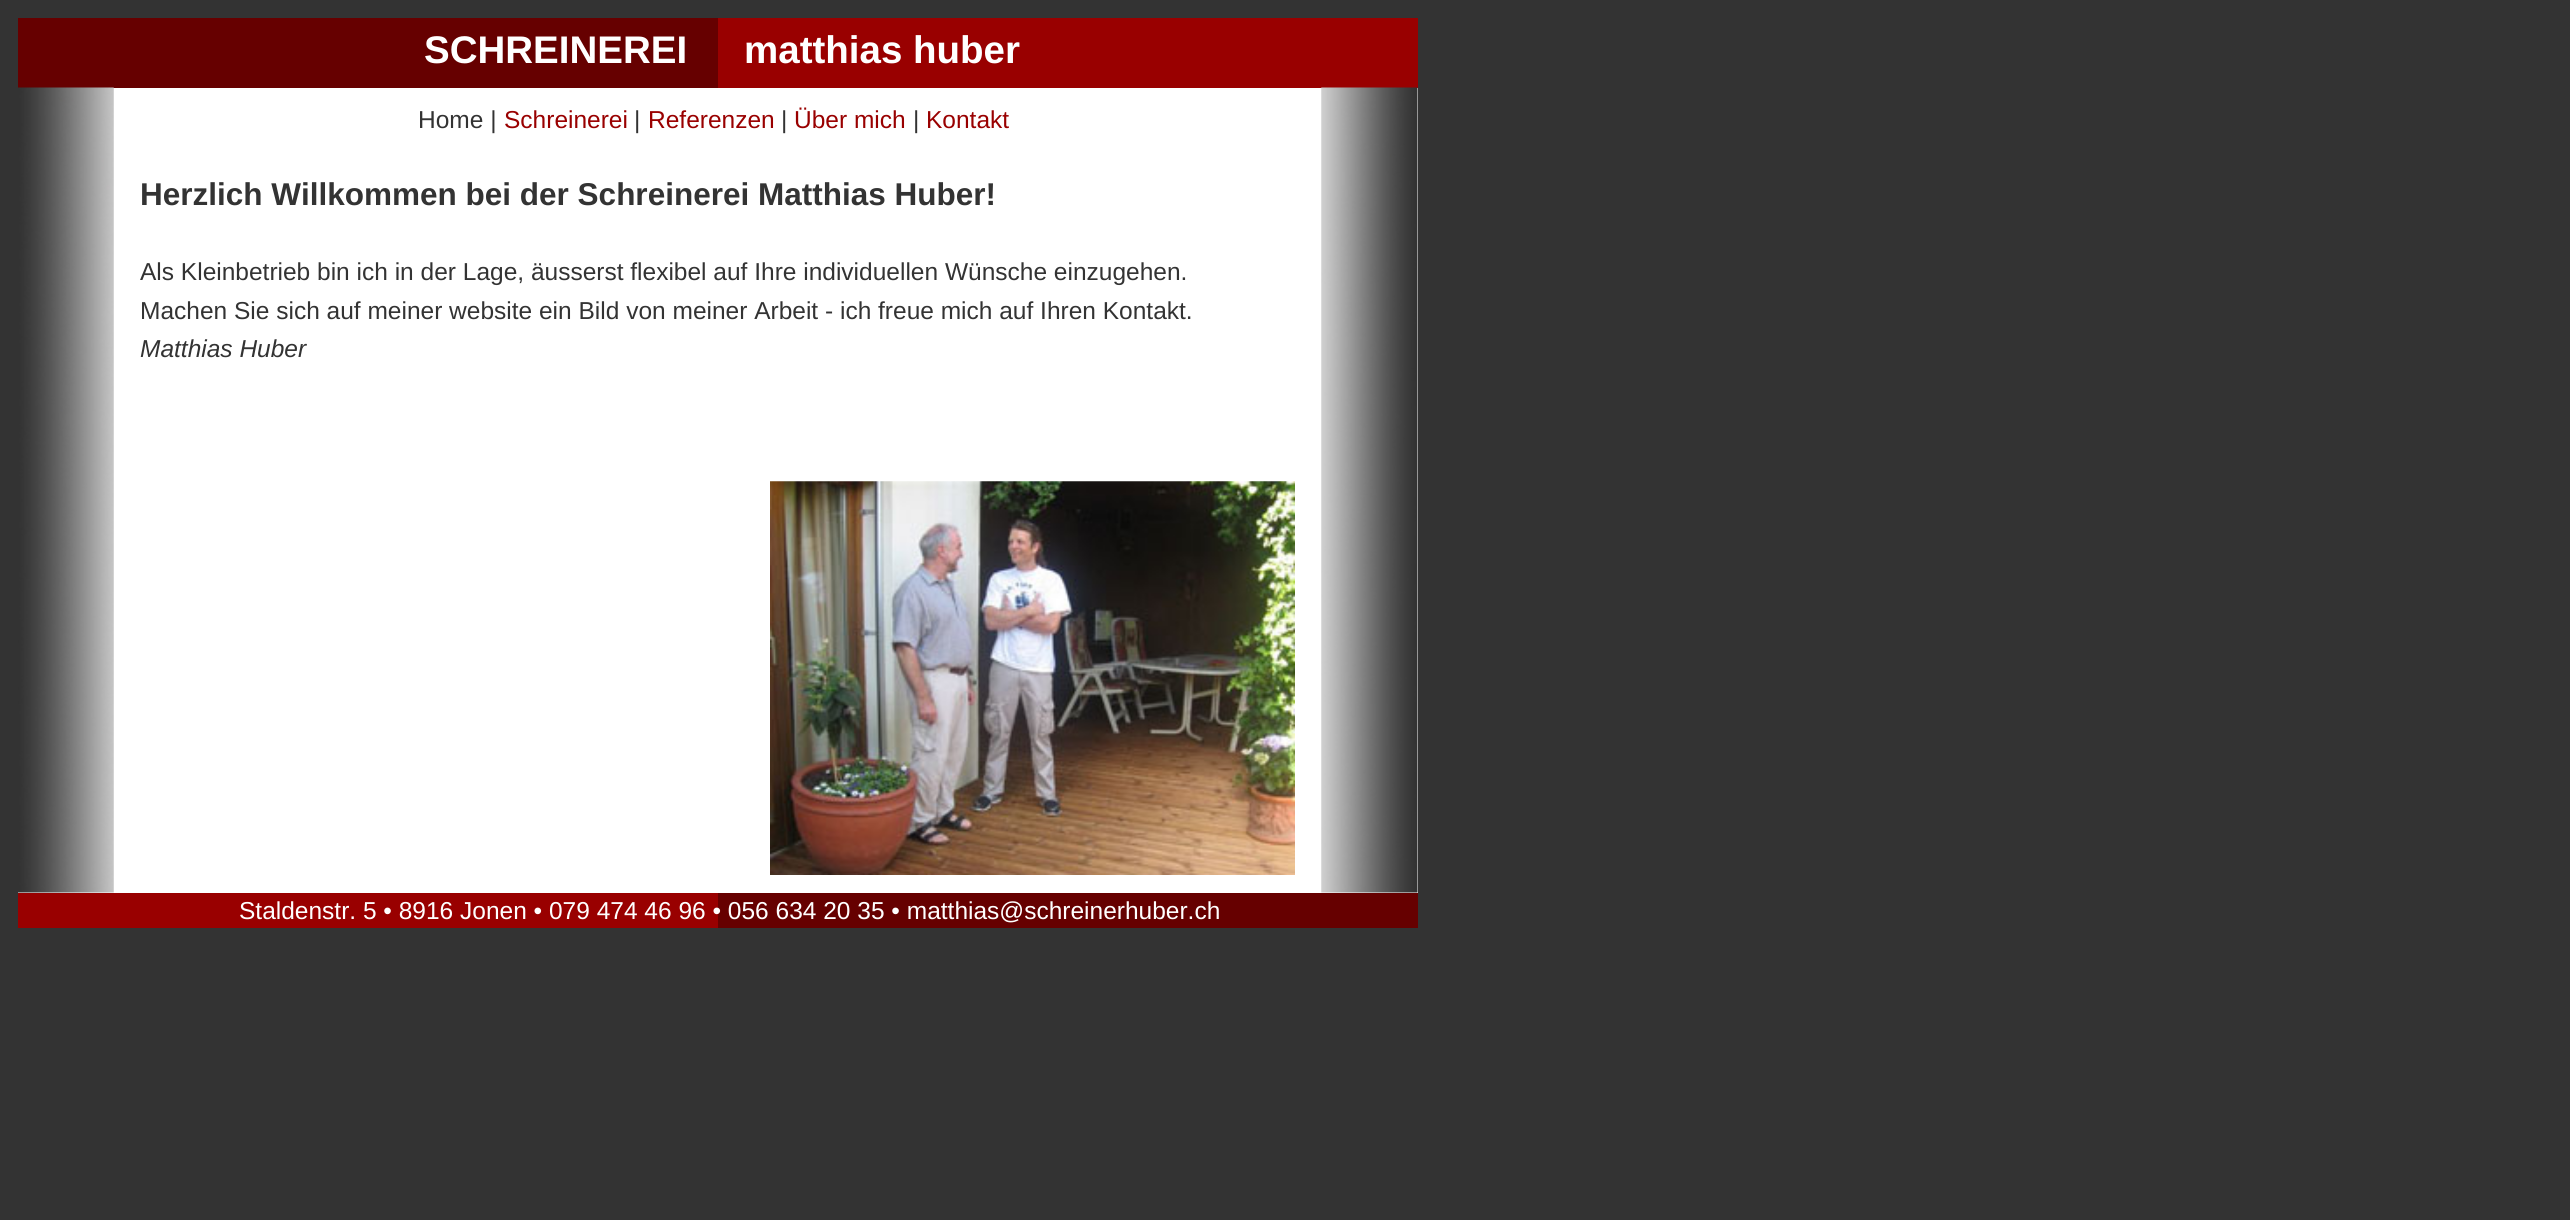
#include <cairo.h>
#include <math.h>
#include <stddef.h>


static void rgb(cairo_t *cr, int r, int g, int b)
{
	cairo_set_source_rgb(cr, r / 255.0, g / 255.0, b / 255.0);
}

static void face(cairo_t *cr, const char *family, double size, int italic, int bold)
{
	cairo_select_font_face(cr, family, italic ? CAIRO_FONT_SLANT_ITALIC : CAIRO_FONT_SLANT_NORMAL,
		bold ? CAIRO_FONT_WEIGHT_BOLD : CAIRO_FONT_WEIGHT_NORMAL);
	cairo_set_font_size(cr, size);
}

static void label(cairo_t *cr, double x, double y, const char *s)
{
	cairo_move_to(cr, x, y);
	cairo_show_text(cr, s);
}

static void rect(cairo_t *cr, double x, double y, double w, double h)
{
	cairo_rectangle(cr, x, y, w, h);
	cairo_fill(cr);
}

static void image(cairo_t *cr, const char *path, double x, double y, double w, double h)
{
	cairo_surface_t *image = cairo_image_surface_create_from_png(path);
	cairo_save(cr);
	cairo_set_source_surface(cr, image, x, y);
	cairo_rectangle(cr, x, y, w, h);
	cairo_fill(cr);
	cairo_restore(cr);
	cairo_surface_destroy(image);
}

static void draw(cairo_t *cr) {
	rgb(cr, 51, 51, 51);
	cairo_paint(cr);
	rgb(cr, 102, 0, 0);
	rect(cr, 18, 18, 700, 70);
	rgb(cr, 153, 0, 0);
	rect(cr, 718, 18, 700, 70);
	face(cr, "Liberation Sans", 38.5, 0, 1);
	rgb(cr, 255, 255, 255);
	label(cr, 424, 63, "SCHREINEREI");
	label(cr, 744, 63, "matthias huber");
	rect(cr, 18, 88, 1400, 805);
	image(cr, "image0.png", 18, 87, 96, 806);
	image(cr, "image1.png", 1321, 87, 97, 806);
	face(cr, "Liberation Sans", 24.5, 0, 0);
	rgb(cr, 51, 51, 51);
	label(cr, 418, 128, "Home |");
	rgb(cr, 153, 0, 0);
	label(cr, 504, 128, "Schreinerei");
	rgb(cr, 51, 51, 51);
	label(cr, 634, 128, "|");
	rgb(cr, 153, 0, 0);
	label(cr, 648, 128, "Referenzen");
	rgb(cr, 51, 51, 51);
	label(cr, 781, 128, "|");
	rgb(cr, 153, 0, 0);
	label(cr, 794, 128, "Über mich");
	rgb(cr, 51, 51, 51);
	label(cr, 913, 128, "|");
	rgb(cr, 153, 0, 0);
	label(cr, 926, 128, "Kontakt");
	face(cr, "Liberation Sans", 31.5, 0, 1);
	rgb(cr, 51, 51, 51);
	label(cr, 140, 205, "Herzlich Willkommen bei der Schreinerei Matthias Huber!");
	face(cr, "Liberation Sans", 24.5, 0, 0);
	label(cr, 140, 280, "Als Kleinbetrieb bin ich in der Lage, äusserst flexibel auf Ihre individuellen Wünsche einzugehen.");
	label(cr, 140, 319, "Machen Sie sich auf meiner website ein Bild von meiner Arbeit - ich freue mich auf Ihren Kontakt.");
	face(cr, "Liberation Sans", 24.5, 1, 0);
	label(cr, 140, 357, "Matthias Huber");
	image(cr, "image2.png", 770, 481, 525, 394);
	rgb(cr, 153, 0, 0);
	rect(cr, 18, 893, 700, 35);
	rgb(cr, 102, 0, 0);
	rect(cr, 718, 893, 700, 35);
	face(cr, "Liberation Sans", 24.5, 0, 0);
	rgb(cr, 255, 255, 255);
	label(cr, 239, 919, "Staldenstr. 5 • 8916 Jonen • 079 474 46 96 • 056 634 20 35 • matthias@schreinerhuber.ch");
}

int main(void) {
	cairo_surface_t *surface = cairo_image_surface_create(CAIRO_FORMAT_RGB24, 2570, 1220);
	cairo_t *cr = cairo_create(surface);
	cairo_font_options_t *options = cairo_font_options_create();
	cairo_font_options_set_hint_metrics(options, CAIRO_HINT_METRICS_OFF);
	cairo_font_options_set_hint_style(options, CAIRO_HINT_STYLE_NONE);
	cairo_set_font_options(cr, options);
	cairo_set_miter_limit(cr, 4);
	draw(cr);
	cairo_surface_write_to_png(surface, "render.png");
	cairo_font_options_destroy(options);
	cairo_destroy(cr);
	cairo_surface_destroy(surface);
	return 0;
}
